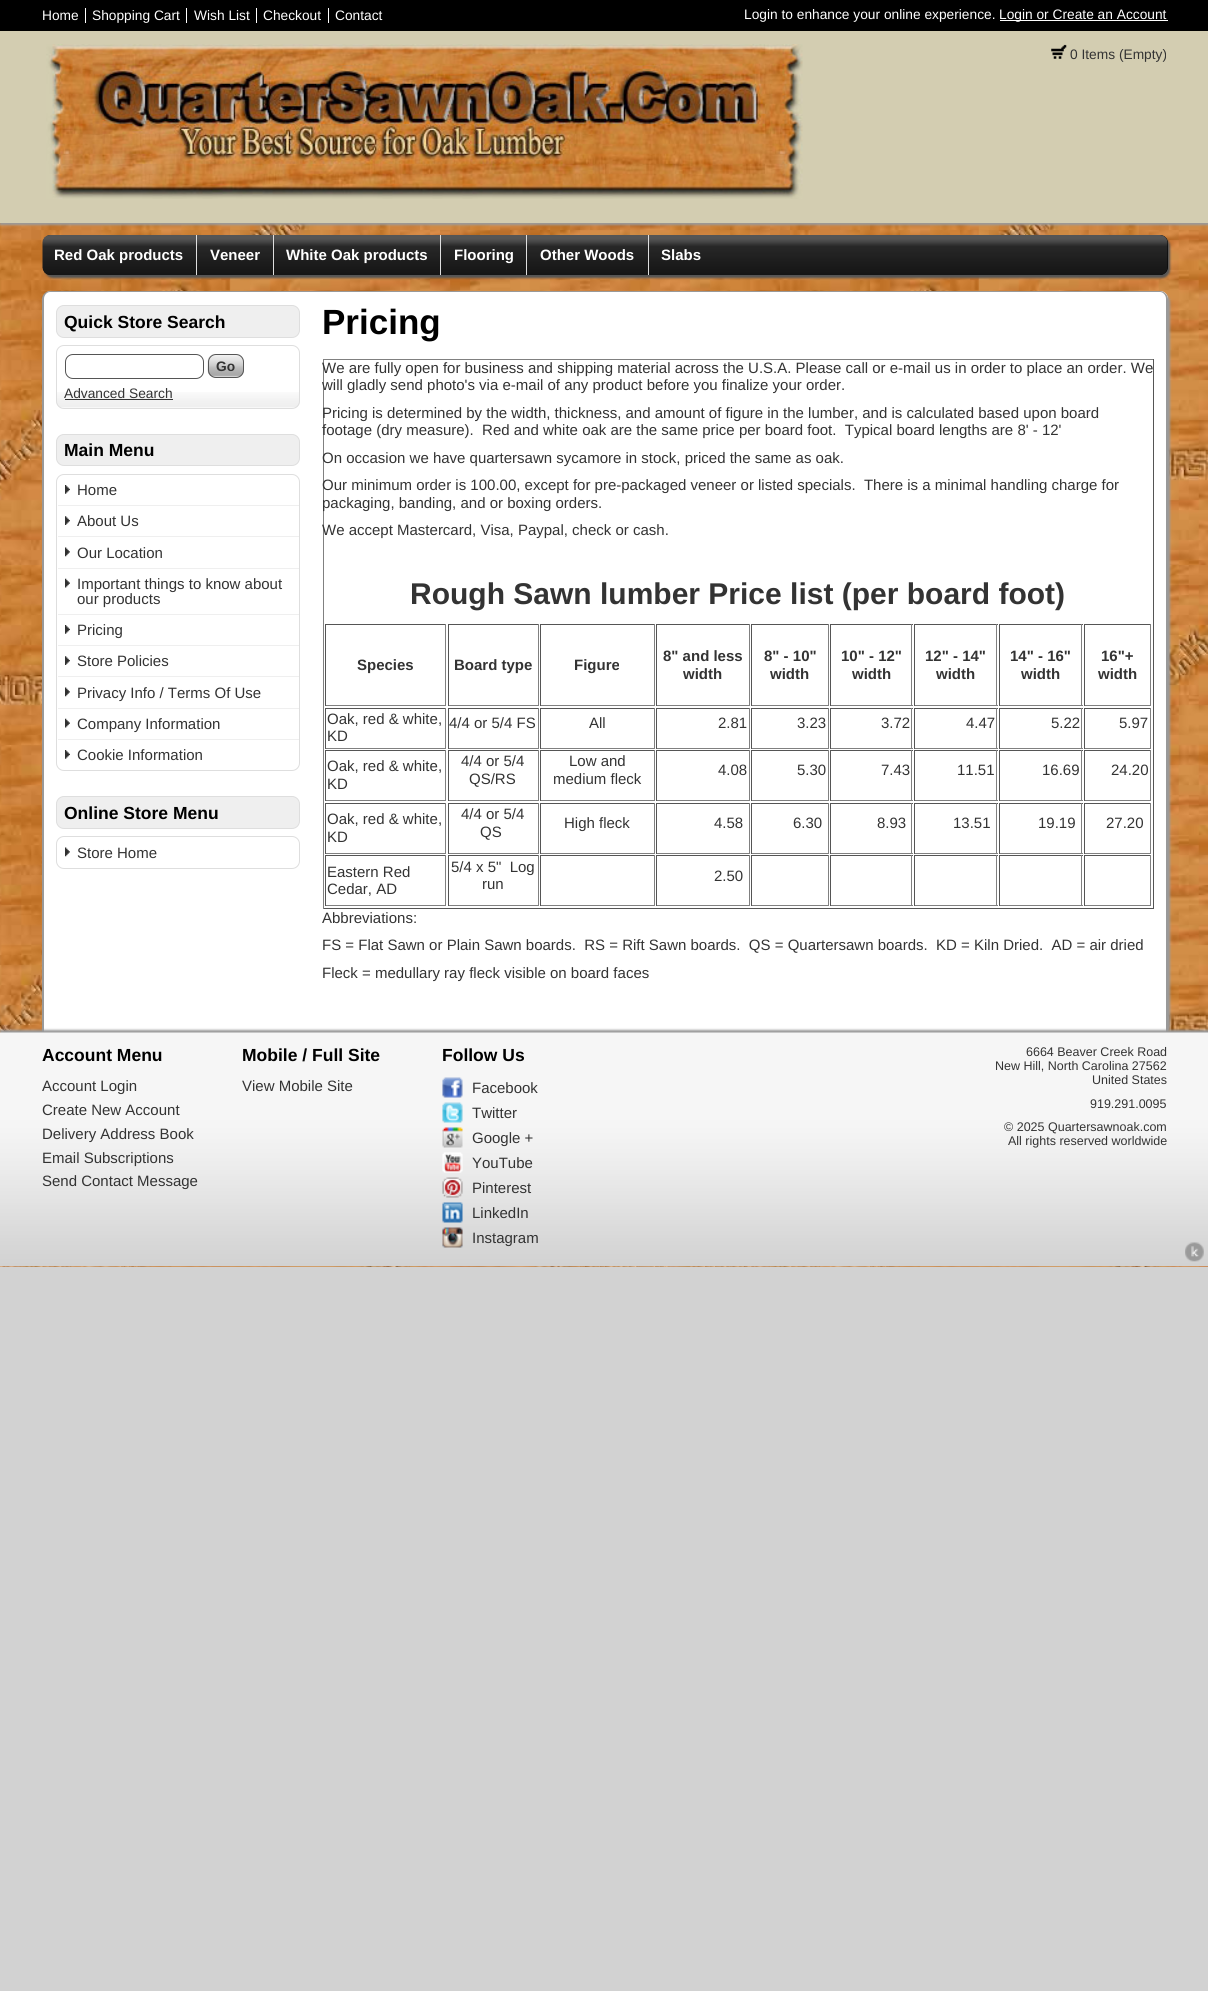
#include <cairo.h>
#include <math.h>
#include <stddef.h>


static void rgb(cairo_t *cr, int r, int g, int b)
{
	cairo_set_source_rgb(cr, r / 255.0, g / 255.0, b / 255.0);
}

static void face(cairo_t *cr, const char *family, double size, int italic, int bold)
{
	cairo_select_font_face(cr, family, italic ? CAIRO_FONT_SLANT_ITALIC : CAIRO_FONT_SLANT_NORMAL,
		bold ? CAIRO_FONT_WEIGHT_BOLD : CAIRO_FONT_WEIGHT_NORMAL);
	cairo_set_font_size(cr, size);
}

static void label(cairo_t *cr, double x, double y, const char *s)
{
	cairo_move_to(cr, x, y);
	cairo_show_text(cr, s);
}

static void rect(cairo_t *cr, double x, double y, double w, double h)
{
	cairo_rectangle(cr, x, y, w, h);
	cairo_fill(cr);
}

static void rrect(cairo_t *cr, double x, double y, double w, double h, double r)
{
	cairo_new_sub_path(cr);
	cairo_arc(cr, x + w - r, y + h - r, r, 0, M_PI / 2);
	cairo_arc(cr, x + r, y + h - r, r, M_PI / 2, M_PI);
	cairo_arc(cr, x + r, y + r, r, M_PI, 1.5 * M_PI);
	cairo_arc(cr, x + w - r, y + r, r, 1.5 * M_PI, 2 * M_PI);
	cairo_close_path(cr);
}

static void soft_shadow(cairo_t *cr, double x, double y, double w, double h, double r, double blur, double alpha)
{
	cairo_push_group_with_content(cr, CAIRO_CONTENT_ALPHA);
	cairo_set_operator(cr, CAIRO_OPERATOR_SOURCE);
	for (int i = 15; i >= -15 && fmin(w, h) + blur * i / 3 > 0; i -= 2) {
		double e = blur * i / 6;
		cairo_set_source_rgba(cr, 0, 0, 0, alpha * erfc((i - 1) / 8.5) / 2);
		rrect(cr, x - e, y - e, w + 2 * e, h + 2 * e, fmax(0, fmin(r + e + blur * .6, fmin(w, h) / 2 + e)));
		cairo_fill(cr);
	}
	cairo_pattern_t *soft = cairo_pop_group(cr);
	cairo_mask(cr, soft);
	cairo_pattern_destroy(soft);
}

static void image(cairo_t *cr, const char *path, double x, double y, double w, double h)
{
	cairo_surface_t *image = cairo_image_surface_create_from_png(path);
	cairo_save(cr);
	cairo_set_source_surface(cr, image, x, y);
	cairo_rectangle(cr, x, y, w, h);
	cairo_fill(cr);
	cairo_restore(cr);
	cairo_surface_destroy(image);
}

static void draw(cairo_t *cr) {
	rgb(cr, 210, 210, 210);
	cairo_paint(cr);
	image(cr, "image0.png", 0, 223, 1208, 1044);
	rgb(cr, 0, 0, 0);
	rect(cr, 0, 0, 1208, 31);
	face(cr, "Liberation Sans", 13.75, 0, 0);
	rgb(cr, 255, 255, 255);
	label(cr, 42, 20, "Home");
	rect(cr, 85, 8, 1, 15);
	label(cr, 92, 20, "Shopping Cart");
	rect(cr, 186, 8, 1, 15);
	label(cr, 194, 20, "Wish List");
	rect(cr, 256, 8, 1, 15);
	label(cr, 263, 20, "Checkout");
	rect(cr, 328, 8, 1, 15);
	label(cr, 335, 20, "Contact");
	label(cr, 744, 19, "Login to enhance your online experience.");
	rect(cr, 1000, 20, 168, 1);
	label(cr, 999, 19, "Login or Create an Account");
	rgb(cr, 153, 153, 153);
	soft_shadow(cr, 0, 34, 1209, 191, 0, 1, 1);
	rgb(cr, 211, 205, 177);
	rect(cr, 0, 31, 1208, 192);
	image(cr, "image1.png", 46, 44, 757, 155);
	image(cr, "image2.png", 1051, 44, 16, 15);
	rgb(cr, 51, 51, 51);
	label(cr, 1070, 59, "0 Items (Empty)");
	rgb(cr, 85, 85, 85);
	soft_shadow(cr, 45, 238, 1125, 40, 8, 1, 1);
	rgb(cr, 0, 0, 0);
	rrect(cr, 43, 235, 1125, 40, 8);
	cairo_fill(cr);
	image(cr, "image3.png", 42, 235, 1126, 40);
	rgb(cr, 222, 222, 222);
	rect(cr, 196, 235, 1, 40);
	face(cr, "Liberation Sans", 15, 0, 1);
	rgb(cr, 255, 255, 255);
	label(cr, 54, 260, "Red Oak products");
	rgb(cr, 222, 222, 222);
	rect(cr, 273, 235, 1, 40);
	rgb(cr, 255, 255, 255);
	label(cr, 210, 260, "Veneer");
	rgb(cr, 222, 222, 222);
	rect(cr, 440, 235, 1, 40);
	rgb(cr, 255, 255, 255);
	label(cr, 286, 260, "White Oak products");
	rgb(cr, 222, 222, 222);
	rect(cr, 526, 235, 1, 40);
	rgb(cr, 255, 255, 255);
	label(cr, 454, 260, "Flooring");
	rgb(cr, 222, 222, 222);
	rect(cr, 648, 235, 1, 40);
	rgb(cr, 255, 255, 255);
	label(cr, 540, 260, "Other Woods");
	label(cr, 661, 260, "Slabs");
	rgb(cr, 153, 153, 153);
	soft_shadow(cr, 45, 294, 1125, 741, 8, 1, 1);
	rgb(cr, 255, 255, 255);
	cairo_new_path(cr);
	cairo_move_to(cr, 51, 291);
	cairo_line_to(cr, 1160, 291);
	cairo_curve_to(cr, 1164.5, 291, 1168, 294.5, 1168, 299);
	cairo_line_to(cr, 1168, 1033);
	cairo_line_to(cr, 43, 1033);
	cairo_line_to(cr, 43, 299);
	cairo_curve_to(cr, 43, 294.5, 46.5, 291, 51, 291);
	cairo_close_path(cr);
	cairo_fill(cr);
	rgb(cr, 153, 153, 153);
	cairo_set_fill_rule(cr, CAIRO_FILL_RULE_EVEN_ODD);
	cairo_new_path(cr);
	cairo_move_to(cr, 50, 291);
	cairo_line_to(cr, 1160, 291);
	cairo_curve_to(cr, 1164, 291, 1168, 295, 1168, 299);
	cairo_line_to(cr, 1168, 1032);
	cairo_line_to(cr, 42, 1032);
	cairo_line_to(cr, 42, 299);
	cairo_curve_to(cr, 42, 295, 46, 291, 50, 291);
	cairo_close_path(cr);
	cairo_move_to(cr, 50, 292);
	cairo_line_to(cr, 1160, 292);
	cairo_curve_to(cr, 1163, 292, 1166, 295, 1166, 299);
	cairo_line_to(cr, 1166, 1032);
	cairo_line_to(cr, 44, 1032);
	cairo_line_to(cr, 44, 299);
	cairo_curve_to(cr, 44, 295, 47, 292, 50, 292);
	cairo_close_path(cr);
	cairo_fill(cr);
	rgb(cr, 239, 239, 239);
	rrect(cr, 56.5, 305.5, 243, 32, 7.5);
	cairo_fill_preserve(cr);
	rgb(cr, 222, 222, 222);
	cairo_set_line_width(cr, 1);
	cairo_stroke(cr);
	face(cr, "Liberation Sans", 17.5, 0, 1);
	rgb(cr, 0, 0, 0);
	label(cr, 64, 328, "Quick Store Search");
	image(cr, "image4.png", 56, 392, 244, 16);
	rrect(cr, 56.5, 345.5, 243, 63, 7.5);
	rgb(cr, 222, 222, 222);
	cairo_stroke(cr);
	rrect(cr, 65.5, 354.5, 138, 24, 7.5);
	rgb(cr, 85, 85, 85);
	cairo_stroke(cr);
	rgb(cr, 222, 222, 222);
	rrect(cr, 208, 354, 36, 24, 8);
	cairo_fill(cr);
	image(cr, "image5.png", 207, 354, 37, 23);
	rrect(cr, 208.5, 354.5, 35, 23, 7.5);
	rgb(cr, 85, 85, 85);
	cairo_stroke(cr);
	face(cr, "Liberation Sans", 13.75, 0, 1);
	rgb(cr, 51, 51, 51);
	label(cr, 216, 371, "Go");
	face(cr, "Liberation Sans", 13.75, 0, 0);
	label(cr, 64, 398, "Advanced Search");
	rect(cr, 65, 399, 108, 1);
	rgb(cr, 239, 239, 239);
	rrect(cr, 56.5, 434.5, 243, 31, 7.5);
	cairo_fill_preserve(cr);
	rgb(cr, 222, 222, 222);
	cairo_stroke(cr);
	face(cr, "Liberation Sans", 17.5, 0, 1);
	rgb(cr, 0, 0, 0);
	label(cr, 64, 456, "Main Menu");
	rrect(cr, 56.5, 474.5, 243, 296, 7.5);
	rgb(cr, 222, 222, 222);
	cairo_stroke(cr);
	rgb(cr, 239, 239, 239);
	rect(cr, 58, 505, 241, 1);
	image(cr, "image6.png", 65, 485, 5, 9);
	face(cr, "Liberation Sans", 15, 0, 0);
	rgb(cr, 51, 51, 51);
	label(cr, 77, 495, "Home");
	rgb(cr, 239, 239, 239);
	rect(cr, 58, 536, 241, 1);
	image(cr, "image7.png", 65, 516, 5, 9);
	rgb(cr, 51, 51, 51);
	label(cr, 77, 526, "About Us");
	rgb(cr, 239, 239, 239);
	rect(cr, 58, 568, 241, 1);
	image(cr, "image8.png", 65, 547, 5, 10);
	rgb(cr, 51, 51, 51);
	label(cr, 77, 558, "Our Location");
	rgb(cr, 239, 239, 239);
	rect(cr, 58, 614, 241, 1);
	image(cr, "image9.png", 65, 578, 5, 10);
	rgb(cr, 51, 51, 51);
	label(cr, 77, 589, "Important things to know about");
	label(cr, 77, 604, "our products");
	rgb(cr, 239, 239, 239);
	rect(cr, 58, 645, 241, 1);
	image(cr, "image6.png", 65, 625, 5, 9);
	rgb(cr, 51, 51, 51);
	label(cr, 77, 635, "Pricing");
	rgb(cr, 239, 239, 239);
	rect(cr, 58, 676, 241, 1);
	image(cr, "image7.png", 65, 656, 5, 9);
	rgb(cr, 51, 51, 51);
	label(cr, 77, 666, "Store Policies");
	rgb(cr, 239, 239, 239);
	rect(cr, 58, 708, 241, 1);
	image(cr, "image8.png", 65, 687, 5, 10);
	rgb(cr, 51, 51, 51);
	label(cr, 77, 698, "Privacy Info / Terms Of Use");
	rgb(cr, 239, 239, 239);
	rect(cr, 58, 739, 241, 1);
	image(cr, "image9.png", 65, 718, 5, 10);
	rgb(cr, 51, 51, 51);
	label(cr, 77, 729, "Company Information");
	image(cr, "image6.png", 65, 750, 5, 9);
	label(cr, 77, 760, "Cookie Information");
	rgb(cr, 239, 239, 239);
	rrect(cr, 56.5, 796.5, 243, 32, 7.5);
	cairo_fill_preserve(cr);
	rgb(cr, 222, 222, 222);
	cairo_stroke(cr);
	face(cr, "Liberation Sans", 17.5, 0, 1);
	rgb(cr, 0, 0, 0);
	label(cr, 64, 819, "Online Store Menu");
	rrect(cr, 56.5, 836.5, 243, 32, 7.5);
	rgb(cr, 222, 222, 222);
	cairo_stroke(cr);
	image(cr, "image8.png", 65, 847, 5, 10);
	face(cr, "Liberation Sans", 15, 0, 0);
	rgb(cr, 51, 51, 51);
	label(cr, 77, 858, "Store Home");
	face(cr, "Liberation Sans", 35, 0, 1);
	rgb(cr, 0, 0, 0);
	label(cr, 322, 334, "Pricing");
	rgb(cr, 128, 128, 128);
	rect(cr, 323, 359, 831, 1);
	rgb(cr, 85, 85, 85);
	rect(cr, 1153, 359, 1, 550);
	rect(cr, 323, 908, 831, 1);
	rgb(cr, 128, 128, 128);
	rect(cr, 323, 359, 1, 550);
	face(cr, "Liberation Sans", 15, 0, 0);
	rgb(cr, 51, 51, 51);
	label(cr, 322, 373, "We are fully open for business and shipping material across the U.S.A. Please call or e-mail us in order to place an order. We");
	label(cr, 322, 390, "will gladly send photo's via e-mail of any product before you finalize your order.");
	label(cr, 322, 418, "Pricing is determined by the width, thickness, and amount of figure in the lumber, and is calculated based upon board");
	label(cr, 322, 435, "footage (dry measure).  Red and white oak are the same price per board foot.  Typical board lengths are 8' - 12'");
	label(cr, 322, 463, "On occasion we have quartersawn sycamore in stock, priced the same as oak.");
	label(cr, 322, 490, "Our minimum order is 100.00, except for pre-packaged veneer or listed specials.  There is a minimal handling charge for");
	label(cr, 322, 508, "packaging, banding, and or boxing orders.");
	label(cr, 322, 535, "We accept Mastercard, Visa, Paypal, check or cash.");
	face(cr, "Liberation Sans", 30, 0, 1);
	label(cr, 410, 604, "Rough Sawn lumber Price list (per board foot)");
	rgb(cr, 85, 85, 85);
	rect(cr, 325, 624, 121, 1);
	rgb(cr, 128, 128, 128);
	rect(cr, 445, 624, 1, 82);
	rect(cr, 325, 705, 121, 1);
	rgb(cr, 85, 85, 85);
	rect(cr, 325, 624, 1, 82);
	face(cr, "Liberation Sans", 15, 0, 1);
	rgb(cr, 51, 51, 51);
	label(cr, 357, 670, "Species");
	rgb(cr, 85, 85, 85);
	rect(cr, 448, 624, 91, 1);
	rgb(cr, 128, 128, 128);
	rect(cr, 538, 624, 1, 82);
	rect(cr, 448, 705, 91, 1);
	rgb(cr, 85, 85, 85);
	rect(cr, 448, 624, 1, 82);
	rgb(cr, 51, 51, 51);
	label(cr, 454, 670, "Board type");
	rgb(cr, 85, 85, 85);
	rect(cr, 540, 624, 115, 1);
	rgb(cr, 128, 128, 128);
	rect(cr, 654, 624, 1, 82);
	rect(cr, 540, 705, 115, 1);
	rgb(cr, 85, 85, 85);
	rect(cr, 540, 624, 1, 82);
	rgb(cr, 51, 51, 51);
	label(cr, 574, 670, "Figure");
	rgb(cr, 85, 85, 85);
	rect(cr, 656, 624, 94, 1);
	rgb(cr, 128, 128, 128);
	rect(cr, 749, 624, 1, 82);
	rect(cr, 656, 705, 94, 1);
	rgb(cr, 85, 85, 85);
	rect(cr, 656, 624, 1, 82);
	rgb(cr, 51, 51, 51);
	label(cr, 663, 661, "8\" and less");
	label(cr, 683, 679, "width");
	rgb(cr, 85, 85, 85);
	rect(cr, 751, 624, 78, 1);
	rgb(cr, 128, 128, 128);
	rect(cr, 828, 624, 1, 82);
	rect(cr, 751, 705, 78, 1);
	rgb(cr, 85, 85, 85);
	rect(cr, 751, 624, 1, 82);
	rgb(cr, 51, 51, 51);
	label(cr, 764, 661, "8\" - 10\"");
	label(cr, 770, 679, "width");
	rgb(cr, 85, 85, 85);
	rect(cr, 830, 624, 83, 1);
	rgb(cr, 128, 128, 128);
	rect(cr, 911, 624, 1, 82);
	rect(cr, 830, 705, 83, 1);
	rgb(cr, 85, 85, 85);
	rect(cr, 830, 624, 1, 82);
	rgb(cr, 51, 51, 51);
	label(cr, 841, 661, "10\" - 12\"");
	label(cr, 852, 679, "width");
	rgb(cr, 85, 85, 85);
	rect(cr, 914, 624, 84, 1);
	rgb(cr, 128, 128, 128);
	rect(cr, 996, 624, 1, 82);
	rect(cr, 914, 705, 84, 1);
	rgb(cr, 85, 85, 85);
	rect(cr, 914, 624, 1, 82);
	rgb(cr, 51, 51, 51);
	label(cr, 925, 661, "12\" - 14\"");
	label(cr, 936, 679, "width");
	rgb(cr, 85, 85, 85);
	rect(cr, 999, 624, 84, 1);
	rgb(cr, 128, 128, 128);
	rect(cr, 1081, 624, 1, 82);
	rect(cr, 999, 705, 84, 1);
	rgb(cr, 85, 85, 85);
	rect(cr, 999, 624, 1, 82);
	rgb(cr, 51, 51, 51);
	label(cr, 1010, 661, "14\" - 16\"");
	label(cr, 1021, 679, "width");
	rgb(cr, 85, 85, 85);
	rect(cr, 1084, 624, 67, 1);
	rgb(cr, 128, 128, 128);
	rect(cr, 1150, 624, 1, 82);
	rect(cr, 1084, 705, 67, 1);
	rgb(cr, 85, 85, 85);
	rect(cr, 1084, 624, 1, 82);
	rgb(cr, 51, 51, 51);
	label(cr, 1101, 661, "16\"+");
	label(cr, 1098, 679, "width");
	rgb(cr, 85, 85, 85);
	rect(cr, 325, 708, 121, 1);
	rgb(cr, 128, 128, 128);
	rect(cr, 445, 708, 1, 41);
	rect(cr, 325, 748, 121, 1);
	rgb(cr, 85, 85, 85);
	rect(cr, 325, 708, 1, 41);
	face(cr, "Liberation Sans", 15, 0, 0);
	rgb(cr, 51, 51, 51);
	label(cr, 327, 724, "Oak, red & white,");
	label(cr, 327, 741, "KD");
	rgb(cr, 85, 85, 85);
	rect(cr, 448, 708, 91, 1);
	rgb(cr, 128, 128, 128);
	rect(cr, 538, 708, 1, 41);
	rect(cr, 448, 748, 91, 1);
	rgb(cr, 85, 85, 85);
	rect(cr, 448, 708, 1, 41);
	rgb(cr, 51, 51, 51);
	label(cr, 449, 728, "4/4 or 5/4 FS");
	rgb(cr, 85, 85, 85);
	rect(cr, 540, 708, 115, 1);
	rgb(cr, 128, 128, 128);
	rect(cr, 654, 708, 1, 41);
	rect(cr, 540, 748, 115, 1);
	rgb(cr, 85, 85, 85);
	rect(cr, 540, 708, 1, 41);
	rgb(cr, 51, 51, 51);
	label(cr, 589, 728, "All");
	rgb(cr, 85, 85, 85);
	rect(cr, 656, 708, 94, 1);
	rgb(cr, 128, 128, 128);
	rect(cr, 749, 708, 1, 41);
	rect(cr, 656, 748, 94, 1);
	rgb(cr, 85, 85, 85);
	rect(cr, 656, 708, 1, 41);
	rgb(cr, 51, 51, 51);
	label(cr, 718, 728, "2.81");
	rgb(cr, 85, 85, 85);
	rect(cr, 751, 708, 78, 1);
	rgb(cr, 128, 128, 128);
	rect(cr, 828, 708, 1, 41);
	rect(cr, 751, 748, 78, 1);
	rgb(cr, 85, 85, 85);
	rect(cr, 751, 708, 1, 41);
	rgb(cr, 51, 51, 51);
	label(cr, 797, 728, "3.23");
	rgb(cr, 85, 85, 85);
	rect(cr, 830, 708, 83, 1);
	rgb(cr, 128, 128, 128);
	rect(cr, 911, 708, 1, 41);
	rect(cr, 830, 748, 83, 1);
	rgb(cr, 85, 85, 85);
	rect(cr, 830, 708, 1, 41);
	rgb(cr, 51, 51, 51);
	label(cr, 881, 728, "3.72");
	rgb(cr, 85, 85, 85);
	rect(cr, 914, 708, 84, 1);
	rgb(cr, 128, 128, 128);
	rect(cr, 996, 708, 1, 41);
	rect(cr, 914, 748, 84, 1);
	rgb(cr, 85, 85, 85);
	rect(cr, 914, 708, 1, 41);
	rgb(cr, 51, 51, 51);
	label(cr, 966, 728, "4.47");
	rgb(cr, 85, 85, 85);
	rect(cr, 999, 708, 84, 1);
	rgb(cr, 128, 128, 128);
	rect(cr, 1081, 708, 1, 41);
	rect(cr, 999, 748, 84, 1);
	rgb(cr, 85, 85, 85);
	rect(cr, 999, 708, 1, 41);
	rgb(cr, 51, 51, 51);
	label(cr, 1051, 728, "5.22");
	rgb(cr, 85, 85, 85);
	rect(cr, 1084, 708, 67, 1);
	rgb(cr, 128, 128, 128);
	rect(cr, 1150, 708, 1, 41);
	rect(cr, 1084, 748, 67, 1);
	rgb(cr, 85, 85, 85);
	rect(cr, 1084, 708, 1, 41);
	rgb(cr, 51, 51, 51);
	label(cr, 1119, 728, "5.97");
	rgb(cr, 85, 85, 85);
	rect(cr, 325, 750, 121, 1);
	rgb(cr, 128, 128, 128);
	rect(cr, 445, 750, 1, 51);
	rect(cr, 325, 800, 121, 1);
	rgb(cr, 85, 85, 85);
	rect(cr, 325, 750, 1, 51);
	rgb(cr, 51, 51, 51);
	label(cr, 327, 771, "Oak, red & white,");
	label(cr, 327, 789, "KD");
	rgb(cr, 85, 85, 85);
	rect(cr, 448, 750, 91, 1);
	rgb(cr, 128, 128, 128);
	rect(cr, 538, 750, 1, 51);
	rect(cr, 448, 800, 91, 1);
	rgb(cr, 85, 85, 85);
	rect(cr, 448, 750, 1, 51);
	rgb(cr, 51, 51, 51);
	label(cr, 461, 766, "4/4 or 5/4");
	label(cr, 469, 784, "QS/RS");
	rgb(cr, 85, 85, 85);
	rect(cr, 540, 750, 115, 1);
	rgb(cr, 128, 128, 128);
	rect(cr, 654, 750, 1, 51);
	rect(cr, 540, 800, 115, 1);
	rgb(cr, 85, 85, 85);
	rect(cr, 540, 750, 1, 51);
	rgb(cr, 51, 51, 51);
	label(cr, 569, 766, "Low and");
	label(cr, 553, 784, "medium fleck");
	rgb(cr, 85, 85, 85);
	rect(cr, 656, 750, 94, 1);
	rgb(cr, 128, 128, 128);
	rect(cr, 749, 750, 1, 51);
	rect(cr, 656, 800, 94, 1);
	rgb(cr, 85, 85, 85);
	rect(cr, 656, 750, 1, 51);
	rgb(cr, 51, 51, 51);
	label(cr, 718, 775, "4.08");
	rgb(cr, 85, 85, 85);
	rect(cr, 751, 750, 78, 1);
	rgb(cr, 128, 128, 128);
	rect(cr, 828, 750, 1, 51);
	rect(cr, 751, 800, 78, 1);
	rgb(cr, 85, 85, 85);
	rect(cr, 751, 750, 1, 51);
	rgb(cr, 51, 51, 51);
	label(cr, 797, 775, "5.30");
	rgb(cr, 85, 85, 85);
	rect(cr, 830, 750, 83, 1);
	rgb(cr, 128, 128, 128);
	rect(cr, 911, 750, 1, 51);
	rect(cr, 830, 800, 83, 1);
	rgb(cr, 85, 85, 85);
	rect(cr, 830, 750, 1, 51);
	rgb(cr, 51, 51, 51);
	label(cr, 881, 775, "7.43");
	rgb(cr, 85, 85, 85);
	rect(cr, 914, 750, 84, 1);
	rgb(cr, 128, 128, 128);
	rect(cr, 996, 750, 1, 51);
	rect(cr, 914, 800, 84, 1);
	rgb(cr, 85, 85, 85);
	rect(cr, 914, 750, 1, 51);
	rgb(cr, 51, 51, 51);
	label(cr, 957, 775, "11.51");
	rgb(cr, 85, 85, 85);
	rect(cr, 999, 750, 84, 1);
	rgb(cr, 128, 128, 128);
	rect(cr, 1081, 750, 1, 51);
	rect(cr, 999, 800, 84, 1);
	rgb(cr, 85, 85, 85);
	rect(cr, 999, 750, 1, 51);
	rgb(cr, 51, 51, 51);
	label(cr, 1042, 775, "16.69");
	rgb(cr, 85, 85, 85);
	rect(cr, 1084, 750, 67, 1);
	rgb(cr, 128, 128, 128);
	rect(cr, 1150, 750, 1, 51);
	rect(cr, 1084, 800, 67, 1);
	rgb(cr, 85, 85, 85);
	rect(cr, 1084, 750, 1, 51);
	rgb(cr, 51, 51, 51);
	label(cr, 1111, 775, "24.20");
	rgb(cr, 85, 85, 85);
	rect(cr, 325, 803, 121, 1);
	rgb(cr, 128, 128, 128);
	rect(cr, 445, 803, 1, 51);
	rect(cr, 325, 853, 121, 1);
	rgb(cr, 85, 85, 85);
	rect(cr, 325, 803, 1, 51);
	rgb(cr, 51, 51, 51);
	label(cr, 327, 824, "Oak, red & white,");
	label(cr, 327, 842, "KD");
	rgb(cr, 85, 85, 85);
	rect(cr, 448, 803, 91, 1);
	rgb(cr, 128, 128, 128);
	rect(cr, 538, 803, 1, 51);
	rect(cr, 448, 853, 91, 1);
	rgb(cr, 85, 85, 85);
	rect(cr, 448, 803, 1, 51);
	rgb(cr, 51, 51, 51);
	label(cr, 461, 819, "4/4 or 5/4");
	label(cr, 480, 837, "QS");
	rgb(cr, 85, 85, 85);
	rect(cr, 540, 803, 115, 1);
	rgb(cr, 128, 128, 128);
	rect(cr, 654, 803, 1, 51);
	rect(cr, 540, 853, 115, 1);
	rgb(cr, 85, 85, 85);
	rect(cr, 540, 803, 1, 51);
	rgb(cr, 51, 51, 51);
	label(cr, 564, 828, "High fleck");
	rgb(cr, 85, 85, 85);
	rect(cr, 656, 803, 94, 1);
	rgb(cr, 128, 128, 128);
	rect(cr, 749, 803, 1, 51);
	rect(cr, 656, 853, 94, 1);
	rgb(cr, 85, 85, 85);
	rect(cr, 656, 803, 1, 51);
	rgb(cr, 51, 51, 51);
	label(cr, 714, 828, "4.58");
	rgb(cr, 85, 85, 85);
	rect(cr, 751, 803, 78, 1);
	rgb(cr, 128, 128, 128);
	rect(cr, 828, 803, 1, 51);
	rect(cr, 751, 853, 78, 1);
	rgb(cr, 85, 85, 85);
	rect(cr, 751, 803, 1, 51);
	rgb(cr, 51, 51, 51);
	label(cr, 793, 828, "6.30");
	rgb(cr, 85, 85, 85);
	rect(cr, 830, 803, 83, 1);
	rgb(cr, 128, 128, 128);
	rect(cr, 911, 803, 1, 51);
	rect(cr, 830, 853, 83, 1);
	rgb(cr, 85, 85, 85);
	rect(cr, 830, 803, 1, 51);
	rgb(cr, 51, 51, 51);
	label(cr, 877, 828, "8.93");
	rgb(cr, 85, 85, 85);
	rect(cr, 914, 803, 84, 1);
	rgb(cr, 128, 128, 128);
	rect(cr, 996, 803, 1, 51);
	rect(cr, 914, 853, 84, 1);
	rgb(cr, 85, 85, 85);
	rect(cr, 914, 803, 1, 51);
	rgb(cr, 51, 51, 51);
	label(cr, 953, 828, "13.51");
	rgb(cr, 85, 85, 85);
	rect(cr, 999, 803, 84, 1);
	rgb(cr, 128, 128, 128);
	rect(cr, 1081, 803, 1, 51);
	rect(cr, 999, 853, 84, 1);
	rgb(cr, 85, 85, 85);
	rect(cr, 999, 803, 1, 51);
	rgb(cr, 51, 51, 51);
	label(cr, 1038, 828, "19.19");
	rgb(cr, 85, 85, 85);
	rect(cr, 1084, 803, 67, 1);
	rgb(cr, 128, 128, 128);
	rect(cr, 1150, 803, 1, 51);
	rect(cr, 1084, 853, 67, 1);
	rgb(cr, 85, 85, 85);
	rect(cr, 1084, 803, 1, 51);
	rgb(cr, 51, 51, 51);
	label(cr, 1106, 828, "27.20");
	rgb(cr, 85, 85, 85);
	rect(cr, 325, 855, 121, 1);
	rgb(cr, 128, 128, 128);
	rect(cr, 445, 855, 1, 51);
	rect(cr, 325, 905, 121, 1);
	rgb(cr, 85, 85, 85);
	rect(cr, 325, 855, 1, 51);
	rgb(cr, 51, 51, 51);
	label(cr, 327, 877, "Eastern Red");
	label(cr, 327, 894, "Cedar, AD");
	rgb(cr, 85, 85, 85);
	rect(cr, 448, 855, 91, 1);
	rgb(cr, 128, 128, 128);
	rect(cr, 538, 855, 1, 51);
	rect(cr, 448, 905, 91, 1);
	rgb(cr, 85, 85, 85);
	rect(cr, 448, 855, 1, 51);
	rgb(cr, 51, 51, 51);
	label(cr, 451, 872, "5/4 x 5\"  Log");
	label(cr, 482, 889, "run");
	rgb(cr, 85, 85, 85);
	rect(cr, 540, 855, 115, 1);
	rgb(cr, 128, 128, 128);
	rect(cr, 654, 855, 1, 51);
	rect(cr, 540, 905, 115, 1);
	rgb(cr, 85, 85, 85);
	rect(cr, 540, 855, 1, 51);
	rect(cr, 656, 855, 94, 1);
	rgb(cr, 128, 128, 128);
	rect(cr, 749, 855, 1, 51);
	rect(cr, 656, 905, 94, 1);
	rgb(cr, 85, 85, 85);
	rect(cr, 656, 855, 1, 51);
	rgb(cr, 51, 51, 51);
	label(cr, 714, 881, "2.50");
	rgb(cr, 85, 85, 85);
	rect(cr, 751, 855, 78, 1);
	rgb(cr, 128, 128, 128);
	rect(cr, 828, 855, 1, 51);
	rect(cr, 751, 905, 78, 1);
	rgb(cr, 85, 85, 85);
	rect(cr, 751, 855, 1, 51);
	rect(cr, 830, 855, 83, 1);
	rgb(cr, 128, 128, 128);
	rect(cr, 911, 855, 1, 51);
	rect(cr, 830, 905, 83, 1);
	rgb(cr, 85, 85, 85);
	rect(cr, 830, 855, 1, 51);
	rect(cr, 914, 855, 84, 1);
	rgb(cr, 128, 128, 128);
	rect(cr, 996, 855, 1, 51);
	rect(cr, 914, 905, 84, 1);
	rgb(cr, 85, 85, 85);
	rect(cr, 914, 855, 1, 51);
	rect(cr, 999, 855, 84, 1);
	rgb(cr, 128, 128, 128);
	rect(cr, 1081, 855, 1, 51);
	rect(cr, 999, 905, 84, 1);
	rgb(cr, 85, 85, 85);
	rect(cr, 999, 855, 1, 51);
	rect(cr, 1084, 855, 67, 1);
	rgb(cr, 128, 128, 128);
	rect(cr, 1150, 855, 1, 51);
	rect(cr, 1084, 905, 67, 1);
	rgb(cr, 85, 85, 85);
	rect(cr, 1084, 855, 1, 51);
	rgb(cr, 51, 51, 51);
	label(cr, 322, 923, "Abbreviations:");
	label(cr, 322, 950, "FS = Flat Sawn or Plain Sawn boards.  RS = Rift Sawn boards.  QS = Quartersawn boards.  KD = Kiln Dried.  AD = air dried");
	label(cr, 322, 978, "Fleck = medullary ray fleck visible on board faces");
	rgb(cr, 153, 153, 153);
	soft_shadow(cr, 0, 1030, 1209, 234, 0, 1, 1);
	image(cr, "image10.png", 0, 1032, 1208, 235);
	face(cr, "Liberation Sans", 17.5, 0, 1);
	rgb(cr, 0, 0, 0);
	label(cr, 42, 1061, "Account Menu");
	face(cr, "Liberation Sans", 15, 0, 0);
	rgb(cr, 51, 51, 51);
	label(cr, 42, 1091, "Account Login");
	label(cr, 42, 1115, "Create New Account");
	label(cr, 42, 1139, "Delivery Address Book");
	label(cr, 42, 1163, "Email Subscriptions");
	label(cr, 42, 1186, "Send Contact Message");
	face(cr, "Liberation Sans", 17.5, 0, 1);
	rgb(cr, 0, 0, 0);
	label(cr, 242, 1061, "Mobile / Full Site");
	face(cr, "Liberation Sans", 15, 0, 0);
	rgb(cr, 51, 51, 51);
	label(cr, 242, 1091, "View Mobile Site");
	face(cr, "Liberation Sans", 17.5, 0, 1);
	rgb(cr, 0, 0, 0);
	label(cr, 442, 1061, "Follow Us");
	image(cr, "image11.png", 442, 1077, 21, 21);
	face(cr, "Liberation Sans", 15, 0, 0);
	rgb(cr, 51, 51, 51);
	label(cr, 472, 1093, "Facebook");
	image(cr, "image12.png", 442, 1102, 21, 21);
	label(cr, 472, 1118, "Twitter");
	image(cr, "image13.png", 442, 1127, 21, 21);
	label(cr, 472, 1143, "Google +");
	image(cr, "image14.png", 442, 1152, 21, 21);
	label(cr, 472, 1168, "YouTube");
	image(cr, "image15.png", 442, 1177, 21, 21);
	label(cr, 472, 1193, "Pinterest");
	image(cr, "image16.png", 442, 1202, 21, 21);
	label(cr, 472, 1218, "LinkedIn");
	image(cr, "image17.png", 442, 1227, 21, 21);
	label(cr, 472, 1243, "Instagram");
	face(cr, "Liberation Sans", 12.5, 0, 0);
	label(cr, 1026, 1056, "6664 Beaver Creek Road");
	label(cr, 995, 1070, "New Hill, North Carolina 27562");
	label(cr, 1092, 1084, "United States");
	label(cr, 1090, 1108, "919.291.0095");
	label(cr, 1004, 1131, "© 2025 Quartersawnoak.com");
	label(cr, 1008, 1145, "All rights reserved worldwide");
	image(cr, "image18.png", 1185, 1242, 19, 20);
}

int main(void) {
	cairo_surface_t *surface = cairo_image_surface_create(CAIRO_FORMAT_RGB24, 1208, 1991);
	cairo_t *cr = cairo_create(surface);
	cairo_font_options_t *options = cairo_font_options_create();
	cairo_font_options_set_hint_metrics(options, CAIRO_HINT_METRICS_OFF);
	cairo_font_options_set_hint_style(options, CAIRO_HINT_STYLE_NONE);
	cairo_set_font_options(cr, options);
	cairo_set_miter_limit(cr, 4);
	draw(cr);
	cairo_surface_write_to_png(surface, "render.png");
	cairo_font_options_destroy(options);
	cairo_destroy(cr);
	cairo_surface_destroy(surface);
	return 0;
}
